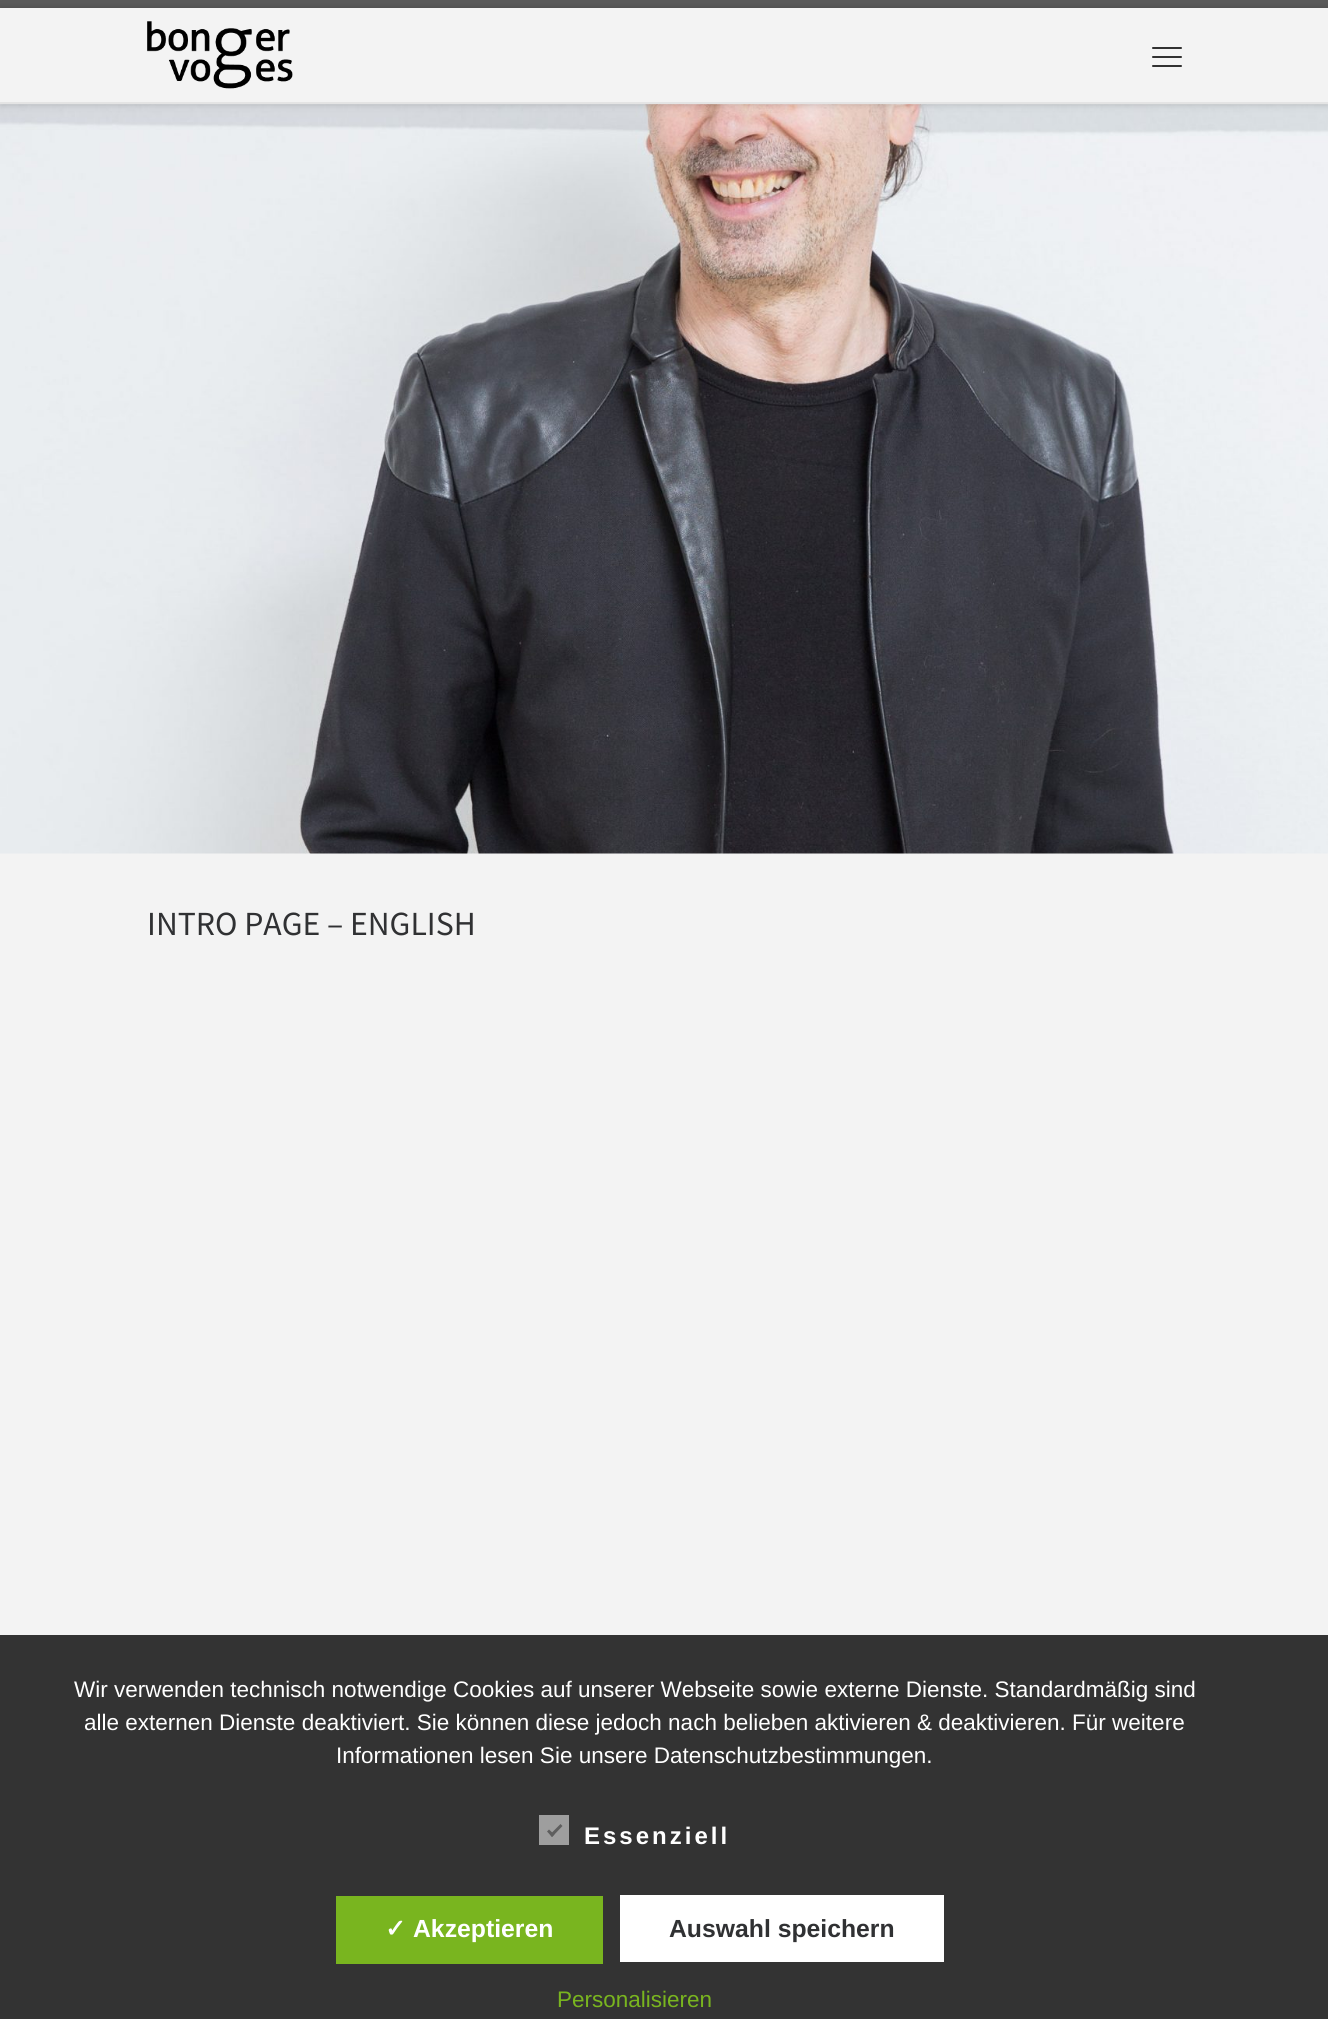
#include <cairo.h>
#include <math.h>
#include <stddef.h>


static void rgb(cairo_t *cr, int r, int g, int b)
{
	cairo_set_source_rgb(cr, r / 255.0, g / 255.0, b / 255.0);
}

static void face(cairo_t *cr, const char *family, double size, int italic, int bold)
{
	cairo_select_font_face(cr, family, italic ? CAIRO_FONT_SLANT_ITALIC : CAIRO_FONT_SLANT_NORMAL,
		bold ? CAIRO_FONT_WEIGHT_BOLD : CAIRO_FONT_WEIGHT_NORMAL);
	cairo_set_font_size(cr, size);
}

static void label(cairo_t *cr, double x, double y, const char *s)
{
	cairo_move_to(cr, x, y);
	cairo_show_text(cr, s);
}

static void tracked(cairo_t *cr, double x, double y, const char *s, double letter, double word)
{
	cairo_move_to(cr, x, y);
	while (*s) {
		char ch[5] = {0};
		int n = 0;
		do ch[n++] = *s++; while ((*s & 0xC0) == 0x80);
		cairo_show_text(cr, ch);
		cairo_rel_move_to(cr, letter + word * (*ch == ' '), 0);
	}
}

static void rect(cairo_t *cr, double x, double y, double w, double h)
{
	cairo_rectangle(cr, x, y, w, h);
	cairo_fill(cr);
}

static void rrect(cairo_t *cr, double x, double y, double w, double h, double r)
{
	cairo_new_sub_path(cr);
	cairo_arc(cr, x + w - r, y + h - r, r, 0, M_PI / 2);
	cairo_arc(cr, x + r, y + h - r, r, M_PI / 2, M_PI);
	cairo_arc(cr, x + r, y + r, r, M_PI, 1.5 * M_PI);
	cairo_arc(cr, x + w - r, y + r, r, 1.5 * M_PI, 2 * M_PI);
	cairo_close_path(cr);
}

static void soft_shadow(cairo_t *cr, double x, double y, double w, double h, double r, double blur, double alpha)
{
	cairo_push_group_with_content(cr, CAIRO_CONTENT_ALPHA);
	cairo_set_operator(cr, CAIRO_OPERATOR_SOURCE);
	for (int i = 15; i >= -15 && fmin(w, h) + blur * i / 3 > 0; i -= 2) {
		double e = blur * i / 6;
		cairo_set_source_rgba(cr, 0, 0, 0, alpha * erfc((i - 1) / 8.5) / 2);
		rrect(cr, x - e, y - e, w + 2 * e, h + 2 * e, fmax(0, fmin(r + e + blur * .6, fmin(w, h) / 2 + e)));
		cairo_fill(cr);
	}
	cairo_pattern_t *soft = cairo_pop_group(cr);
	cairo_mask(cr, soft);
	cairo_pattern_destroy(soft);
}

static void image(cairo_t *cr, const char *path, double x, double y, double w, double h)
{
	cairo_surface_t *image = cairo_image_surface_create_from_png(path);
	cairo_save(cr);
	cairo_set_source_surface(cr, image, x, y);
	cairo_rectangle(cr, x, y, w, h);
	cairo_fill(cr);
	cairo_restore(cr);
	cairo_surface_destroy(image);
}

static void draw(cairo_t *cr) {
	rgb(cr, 243, 243, 243);
	cairo_paint(cr);
	rgb(cr, 90, 90, 90);
	rect(cr, 0, 0, 1328, 8);
	image(cr, "image1.png", 0, 104, 1328, 750);
	cairo_set_source_rgba(cr, 1, 1, 1, 0.15);
	rect(cr, 0, 104, 1328, 1);
	rgb(cr, 0, 0, 0);
	soft_shadow(cr, 0, 8, 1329, 96, 0, 4, 0.2);
	rgb(cr, 243, 243, 243);
	rect(cr, 0, 8, 1328, 94);
	image(cr, "image0.png", 147, 21, 146, 68);
	rgb(cr, 49, 49, 49);
	rrect(cr, 1152, 47, 30, 2, 1);
	cairo_fill(cr);
	rrect(cr, 1152, 56, 30, 2, 1);
	cairo_fill(cr);
	rrect(cr, 1152, 65, 30, 2, 1);
	cairo_fill(cr);
	rgb(cr, 228, 228, 228);
	rect(cr, 0, 102, 1328, 2);
	face(cr, "Source Sans Pro", 33.75, 0, 0);
	rgb(cr, 48, 49, 51);
	label(cr, 147, 935, "INTRO PAGE – ENGLISH");
	rgb(cr, 51, 51, 51);
	rect(cr, 0, 1635, 1328, 384);
	face(cr, "Liberation Sans", 22.5, 0, 0);
	rgb(cr, 255, 255, 255);
	label(cr, 74, 1697, "Wir verwenden technisch notwendige Cookies auf unserer Webseite sowie externe Dienste. Standardmäßig sind");
	label(cr, 84, 1730, "alle externen Dienste deaktiviert. Sie können diese jedoch nach belieben aktivieren & deaktivieren. Für weitere");
	label(cr, 336, 1763, "Informationen lesen Sie unsere Datenschutzbestimmungen.");
	rgb(cr, 158, 158, 158);
	rect(cr, 539, 1815, 30, 30);
	rgb(cr, 94, 94, 94);
	cairo_new_path(cr);
	cairo_move_to(cr, 560.5, 1824);
	cairo_line_to(cr, 562.5, 1826);
	cairo_line_to(cr, 552, 1837);
	cairo_line_to(cr, 550, 1834.5);
	cairo_close_path(cr);
	cairo_fill(cr);
	cairo_new_path(cr);
	cairo_move_to(cr, 549, 1829.5);
	cairo_line_to(cr, 554.5, 1834.5);
	cairo_line_to(cr, 552, 1837);
	cairo_line_to(cr, 547, 1831.5);
	cairo_close_path(cr);
	cairo_fill(cr);
	face(cr, "Liberation Sans", 24, 0, 1);
	rgb(cr, 255, 255, 255);
	tracked(cr, 584, 1844, "Essenziell", 3, 0);
	rgb(cr, 121, 181, 31);
	rect(cr, 336, 1896, 267, 68);
	face(cr, "DejaVu Sans", 24.75, 0, 1);
	rgb(cr, 255, 255, 255);
	label(cr, 385, 1937, "✓");
	face(cr, "Liberation Sans", 24.75, 0, 1);
	label(cr, 413, 1937, "Akzeptieren");
	rect(cr, 620, 1895, 324, 67);
	rgb(cr, 48, 49, 51);
	label(cr, 669, 1937, "Auswahl speichern");
	face(cr, "Liberation Sans", 22.5, 0, 0);
	rgb(cr, 121, 181, 31);
	label(cr, 557, 2007, "Personalisieren");
}

int main(void) {
	cairo_surface_t *surface = cairo_image_surface_create(CAIRO_FORMAT_RGB24, 1328, 2019);
	cairo_t *cr = cairo_create(surface);
	cairo_font_options_t *options = cairo_font_options_create();
	cairo_font_options_set_hint_metrics(options, CAIRO_HINT_METRICS_OFF);
	cairo_font_options_set_hint_style(options, CAIRO_HINT_STYLE_NONE);
	cairo_set_font_options(cr, options);
	cairo_set_miter_limit(cr, 4);
	draw(cr);
	cairo_surface_write_to_png(surface, "render.png");
	cairo_font_options_destroy(options);
	cairo_destroy(cr);
	cairo_surface_destroy(surface);
	return 0;
}
